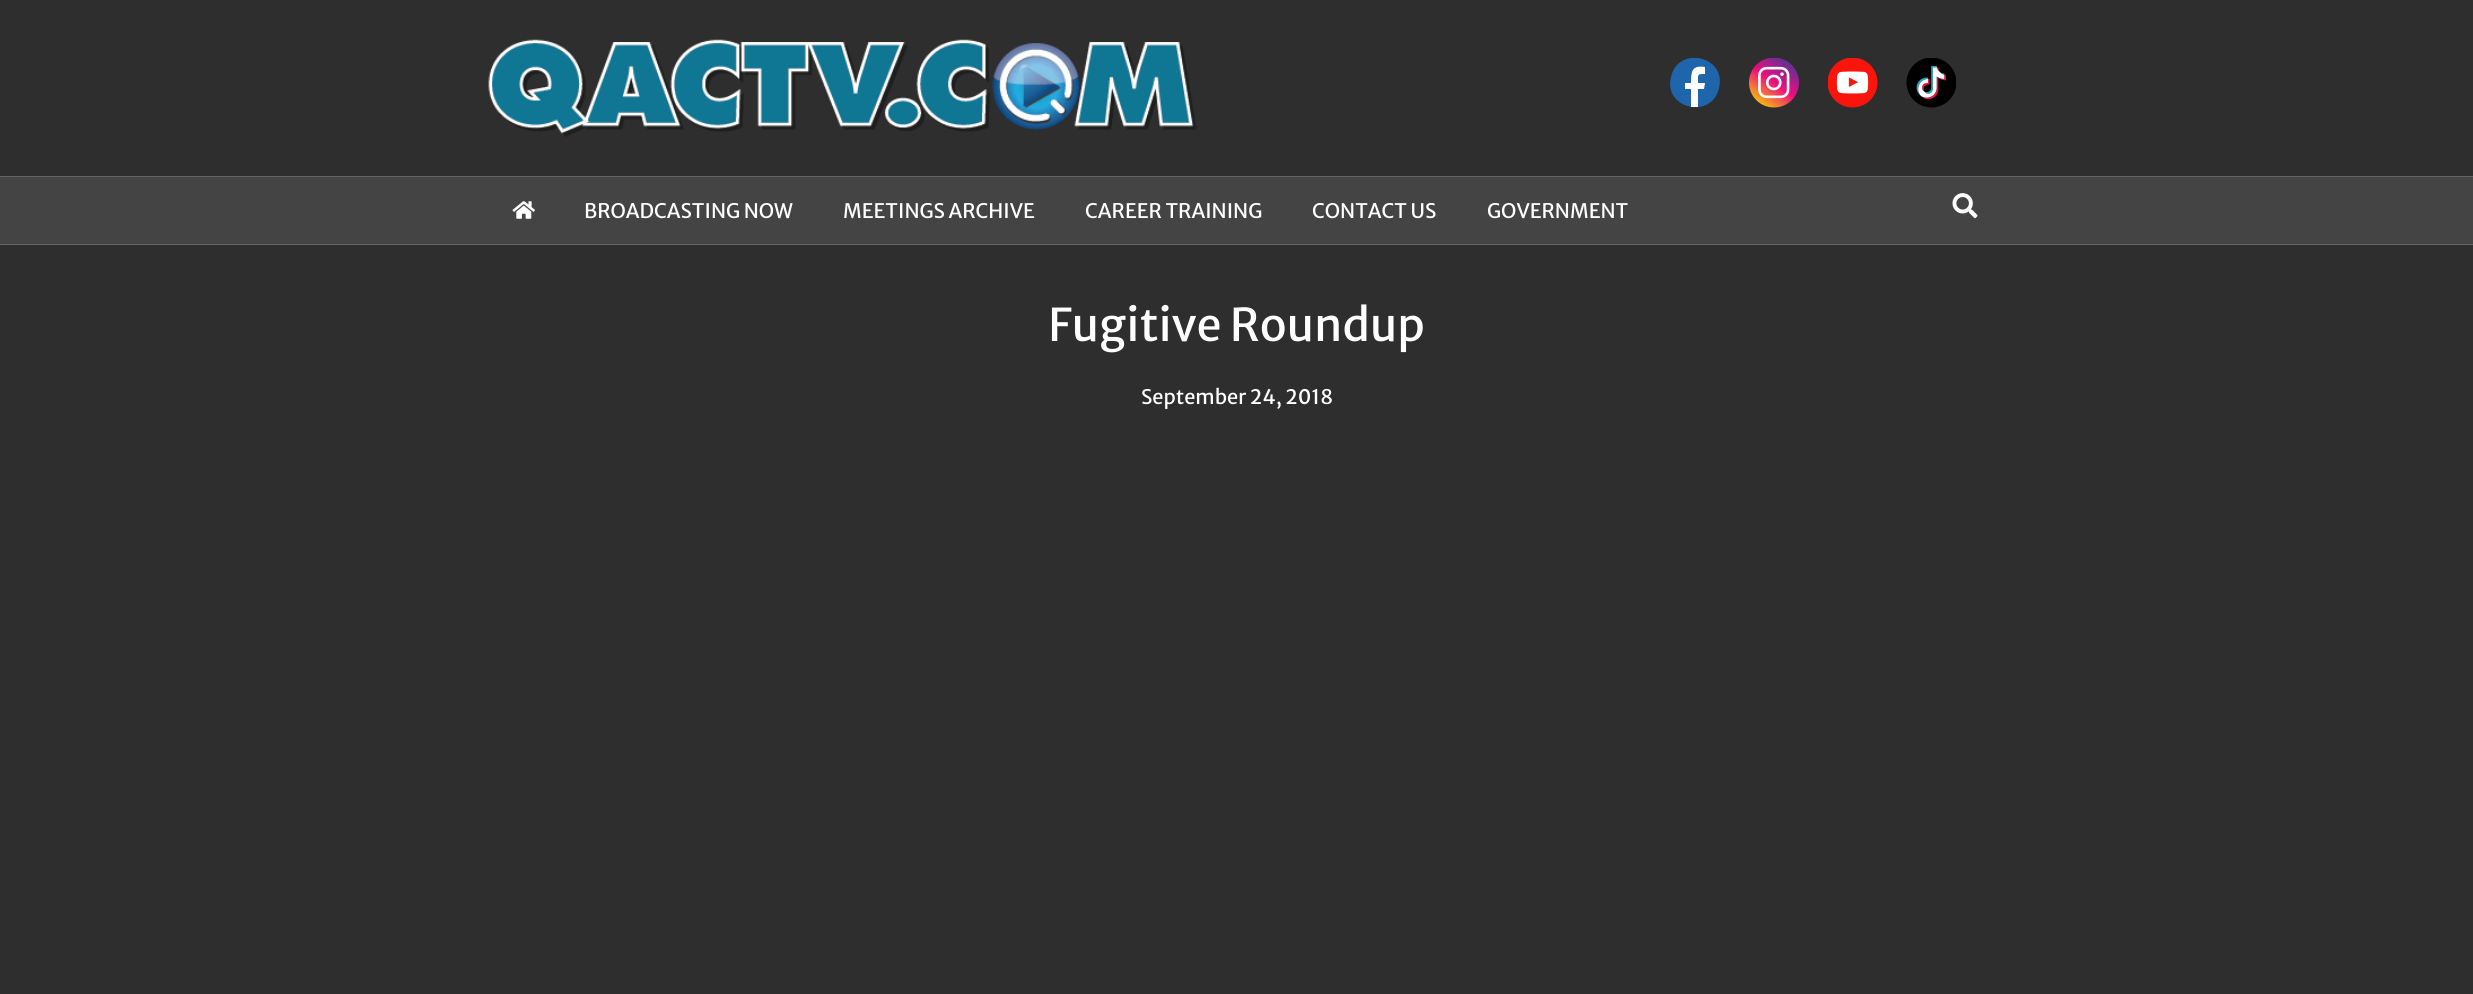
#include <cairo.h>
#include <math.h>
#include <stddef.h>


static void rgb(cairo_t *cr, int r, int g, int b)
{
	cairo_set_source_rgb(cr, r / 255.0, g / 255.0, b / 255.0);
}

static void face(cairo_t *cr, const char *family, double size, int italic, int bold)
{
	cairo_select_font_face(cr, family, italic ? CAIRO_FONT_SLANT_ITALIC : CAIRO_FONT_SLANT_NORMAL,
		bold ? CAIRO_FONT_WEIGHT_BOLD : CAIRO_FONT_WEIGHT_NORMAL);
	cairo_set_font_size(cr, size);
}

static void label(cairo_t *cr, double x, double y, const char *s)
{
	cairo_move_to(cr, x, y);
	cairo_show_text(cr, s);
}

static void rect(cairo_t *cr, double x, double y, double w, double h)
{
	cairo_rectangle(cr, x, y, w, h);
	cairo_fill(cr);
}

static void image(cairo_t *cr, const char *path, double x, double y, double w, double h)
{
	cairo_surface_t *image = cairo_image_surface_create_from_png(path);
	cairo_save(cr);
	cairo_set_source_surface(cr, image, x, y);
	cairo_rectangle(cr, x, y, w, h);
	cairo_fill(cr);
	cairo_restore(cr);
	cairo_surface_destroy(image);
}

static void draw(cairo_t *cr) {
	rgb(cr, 46, 46, 46);
	cairo_paint(cr);
	image(cr, "image0.png", 488, 39, 709, 98);
	cairo_save(cr);
	cairo_rectangle(cr, 1670, 58, 50, 50);
	cairo_clip(cr);
	rgb(cr, 30, 101, 171);
	cairo_new_path(cr);
	cairo_move_to(cr, 1671, 77);
	cairo_curve_to(cr, 1678, 45, 1727, 56, 1719, 88);
	cairo_curve_to(cr, 1712, 120, 1663, 109, 1671, 77);
	cairo_close_path(cr);
	cairo_fill(cr);
	cairo_restore(cr);
	image(cr, "image1.png", 1749, 58, 50, 50);
	image(cr, "image2.png", 1828, 58, 50, 50);
	image(cr, "image3.png", 1906, 58, 50, 50);
	rgb(cr, 255, 255, 255);
	cairo_new_path(cr);
	cairo_move_to(cr, 1704, 89);
	cairo_line_to(cr, 1705, 83);
	cairo_line_to(cr, 1698, 83);
	cairo_curve_to(cr, 1698, 74, 1697, 74, 1705, 74);
	cairo_line_to(cr, 1705, 67);
	cairo_curve_to(cr, 1692, 65, 1691, 71, 1691, 83);
	cairo_line_to(cr, 1685, 83);
	cairo_line_to(cr, 1685, 89);
	cairo_line_to(cr, 1691, 89);
	cairo_line_to(cr, 1691, 107);
	cairo_line_to(cr, 1698, 107);
	cairo_line_to(cr, 1698, 89);
	cairo_close_path(cr);
	cairo_fill(cr);
	rgb(cr, 68, 68, 68);
	rect(cr, 0, 177, 2473, 67);
	rgb(cr, 101, 101, 101);
	rect(cr, 0, 176, 2473, 1);
	rect(cr, 0, 244, 2473, 1);
	image(cr, "image4.png", 512, 201, 23, 18);
	face(cr, "Merriweather Sans", 20, 0, 0);
	rgb(cr, 255, 255, 255);
	label(cr, 584, 218, "BROADCASTING NOW");
	label(cr, 843, 218, "MEETINGS ARCHIVE");
	label(cr, 1085, 218, "CAREER TRAINING");
	label(cr, 1312, 218, "CONTACT US");
	label(cr, 1487, 218, "GOVERNMENT");
	image(cr, "image5.png", 1952, 193, 26, 26);
	face(cr, "Merriweather Sans", 45, 0, 0);
	label(cr, 1048, 341, "Fugitive Roundup");
	face(cr, "Merriweather Sans", 20, 0, 0);
	label(cr, 1141, 404, "September 24, 2018");
}

int main(void) {
	cairo_surface_t *surface = cairo_image_surface_create(CAIRO_FORMAT_RGB24, 2473, 994);
	cairo_t *cr = cairo_create(surface);
	cairo_font_options_t *options = cairo_font_options_create();
	cairo_font_options_set_hint_metrics(options, CAIRO_HINT_METRICS_OFF);
	cairo_font_options_set_hint_style(options, CAIRO_HINT_STYLE_NONE);
	cairo_set_font_options(cr, options);
	cairo_set_miter_limit(cr, 4);
	draw(cr);
	cairo_surface_write_to_png(surface, "render.png");
	cairo_font_options_destroy(options);
	cairo_destroy(cr);
	cairo_surface_destroy(surface);
	return 0;
}
